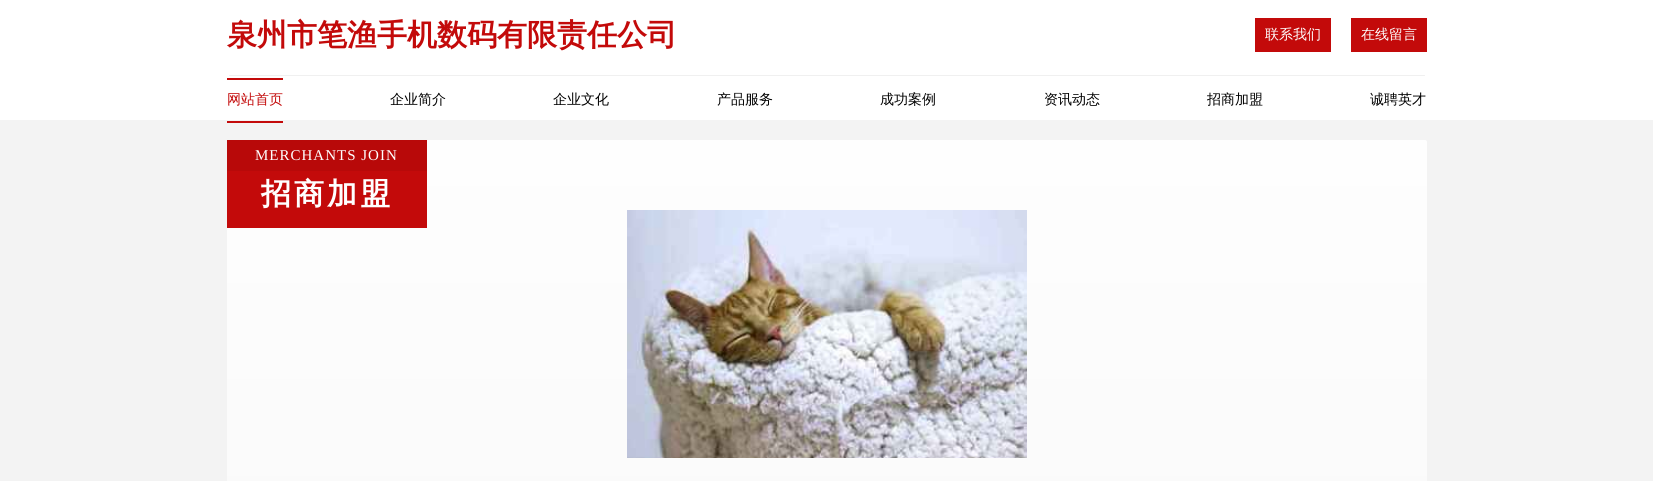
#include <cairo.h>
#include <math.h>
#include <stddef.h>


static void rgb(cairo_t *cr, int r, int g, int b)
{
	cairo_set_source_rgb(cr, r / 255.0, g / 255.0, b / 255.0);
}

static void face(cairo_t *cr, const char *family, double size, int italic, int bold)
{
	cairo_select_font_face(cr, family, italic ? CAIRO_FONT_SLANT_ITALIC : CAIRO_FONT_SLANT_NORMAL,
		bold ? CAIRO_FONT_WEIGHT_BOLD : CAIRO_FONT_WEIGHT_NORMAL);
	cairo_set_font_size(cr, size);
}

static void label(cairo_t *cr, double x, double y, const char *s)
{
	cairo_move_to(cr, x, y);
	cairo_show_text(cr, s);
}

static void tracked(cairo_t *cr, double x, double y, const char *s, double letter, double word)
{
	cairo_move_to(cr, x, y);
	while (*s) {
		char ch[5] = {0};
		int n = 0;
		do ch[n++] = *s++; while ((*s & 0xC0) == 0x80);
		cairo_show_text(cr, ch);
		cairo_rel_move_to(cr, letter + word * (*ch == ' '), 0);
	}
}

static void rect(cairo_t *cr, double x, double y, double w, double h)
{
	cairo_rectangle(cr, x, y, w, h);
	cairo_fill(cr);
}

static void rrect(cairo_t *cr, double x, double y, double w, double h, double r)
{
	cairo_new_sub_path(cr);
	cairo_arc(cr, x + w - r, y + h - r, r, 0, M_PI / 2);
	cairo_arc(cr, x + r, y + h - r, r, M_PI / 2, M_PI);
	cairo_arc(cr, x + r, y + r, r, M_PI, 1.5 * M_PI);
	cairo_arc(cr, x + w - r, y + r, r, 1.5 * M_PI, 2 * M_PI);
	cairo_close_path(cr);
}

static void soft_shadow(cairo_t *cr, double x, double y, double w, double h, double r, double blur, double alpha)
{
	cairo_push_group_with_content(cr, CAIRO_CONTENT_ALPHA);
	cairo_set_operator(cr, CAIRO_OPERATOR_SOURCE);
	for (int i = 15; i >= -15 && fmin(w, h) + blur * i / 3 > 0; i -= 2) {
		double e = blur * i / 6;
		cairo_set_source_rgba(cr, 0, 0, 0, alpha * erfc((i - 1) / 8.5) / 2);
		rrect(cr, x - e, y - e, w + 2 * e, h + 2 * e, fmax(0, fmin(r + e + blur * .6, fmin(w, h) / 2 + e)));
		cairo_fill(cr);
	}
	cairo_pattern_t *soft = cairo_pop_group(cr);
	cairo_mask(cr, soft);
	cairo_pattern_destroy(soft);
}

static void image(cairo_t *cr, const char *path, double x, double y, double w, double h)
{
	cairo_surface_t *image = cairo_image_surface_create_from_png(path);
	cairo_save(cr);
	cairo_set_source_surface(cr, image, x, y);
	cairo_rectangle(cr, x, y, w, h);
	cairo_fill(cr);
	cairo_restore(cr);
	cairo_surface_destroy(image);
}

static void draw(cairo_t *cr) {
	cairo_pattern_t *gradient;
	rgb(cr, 243, 243, 243);
	cairo_paint(cr);
	rgb(cr, 255, 255, 255);
	rect(cr, 0, 0, 1653, 120);
	cairo_save(cr);
	cairo_rectangle(cr, 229, 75, 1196, 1);
	cairo_clip(cr);
	rgb(cr, 0, 0, 0);
	soft_shadow(cr, 229, 0, 1196, 76, 0, 0.5, 0.07);
	cairo_restore(cr);
	face(cr, "WenQuanYi Zen Hei", 30, 0, 1);
	rgb(cr, 195, 10, 10);
	label(cr, 227, 45, "泉州市笔渔手机数码有限责任公司");
	rect(cr, 1255, 18, 76, 34);
	face(cr, "WenQuanYi Zen Hei Medium", 14, 0, 0);
	rgb(cr, 255, 255, 255);
	label(cr, 1265, 39, "联系我们");
	rgb(cr, 195, 10, 10);
	rect(cr, 1351, 18, 76, 34);
	rgb(cr, 255, 255, 255);
	label(cr, 1361, 39, "在线留言");
	rgb(cr, 195, 10, 10);
	rect(cr, 227, 78, 56, 2);
	label(cr, 227, 104, "网站首页");
	rect(cr, 227, 121, 56, 2);
	rgb(cr, 0, 0, 0);
	label(cr, 390, 104, "企业简介");
	label(cr, 553, 104, "企业文化");
	label(cr, 717, 104, "产品服务");
	label(cr, 880, 104, "成功案例");
	label(cr, 1044, 104, "资讯动态");
	label(cr, 1207, 104, "招商加盟");
	label(cr, 1370, 104, "诚聘英才");
	gradient = cairo_pattern_create_linear(827, 140, 827, 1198);
	cairo_pattern_add_color_stop_rgba(gradient, 0, 0.996, 0.996, 0.996, 1);
	cairo_pattern_add_color_stop_rgba(gradient, 1, 0.953, 0.953, 0.953, 1);
	cairo_set_source(cr, gradient);
	cairo_pattern_destroy(gradient);
	rrect(cr, 227, 140, 1200, 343, 2);
	cairo_fill(cr);
	rgb(cr, 195, 10, 10);
	rect(cr, 227, 140, 200, 88);
	cairo_set_source_rgba(cr, 0, 0, 0, 0.06);
	rect(cr, 227, 140, 200, 31);
	face(cr, "Liberation Serif", 15, 0, 0);
	rgb(cr, 255, 255, 255);
	tracked(cr, 255, 160, "MERCHANTS JOIN", 1, 0);
	face(cr, "WenQuanYi Zen Hei", 30, 0, 1);
	tracked(cr, 261, 204, "招商加盟", 3, 0);
	image(cr, "image0.png", 627, 210, 400, 248);
}

int main(void) {
	cairo_surface_t *surface = cairo_image_surface_create(CAIRO_FORMAT_RGB24, 1653, 481);
	cairo_t *cr = cairo_create(surface);
	cairo_font_options_t *options = cairo_font_options_create();
	cairo_font_options_set_hint_metrics(options, CAIRO_HINT_METRICS_OFF);
	cairo_font_options_set_hint_style(options, CAIRO_HINT_STYLE_NONE);
	cairo_set_font_options(cr, options);
	cairo_set_miter_limit(cr, 4);
	draw(cr);
	cairo_surface_write_to_png(surface, "render.png");
	cairo_font_options_destroy(options);
	cairo_destroy(cr);
	cairo_surface_destroy(surface);
	return 0;
}
